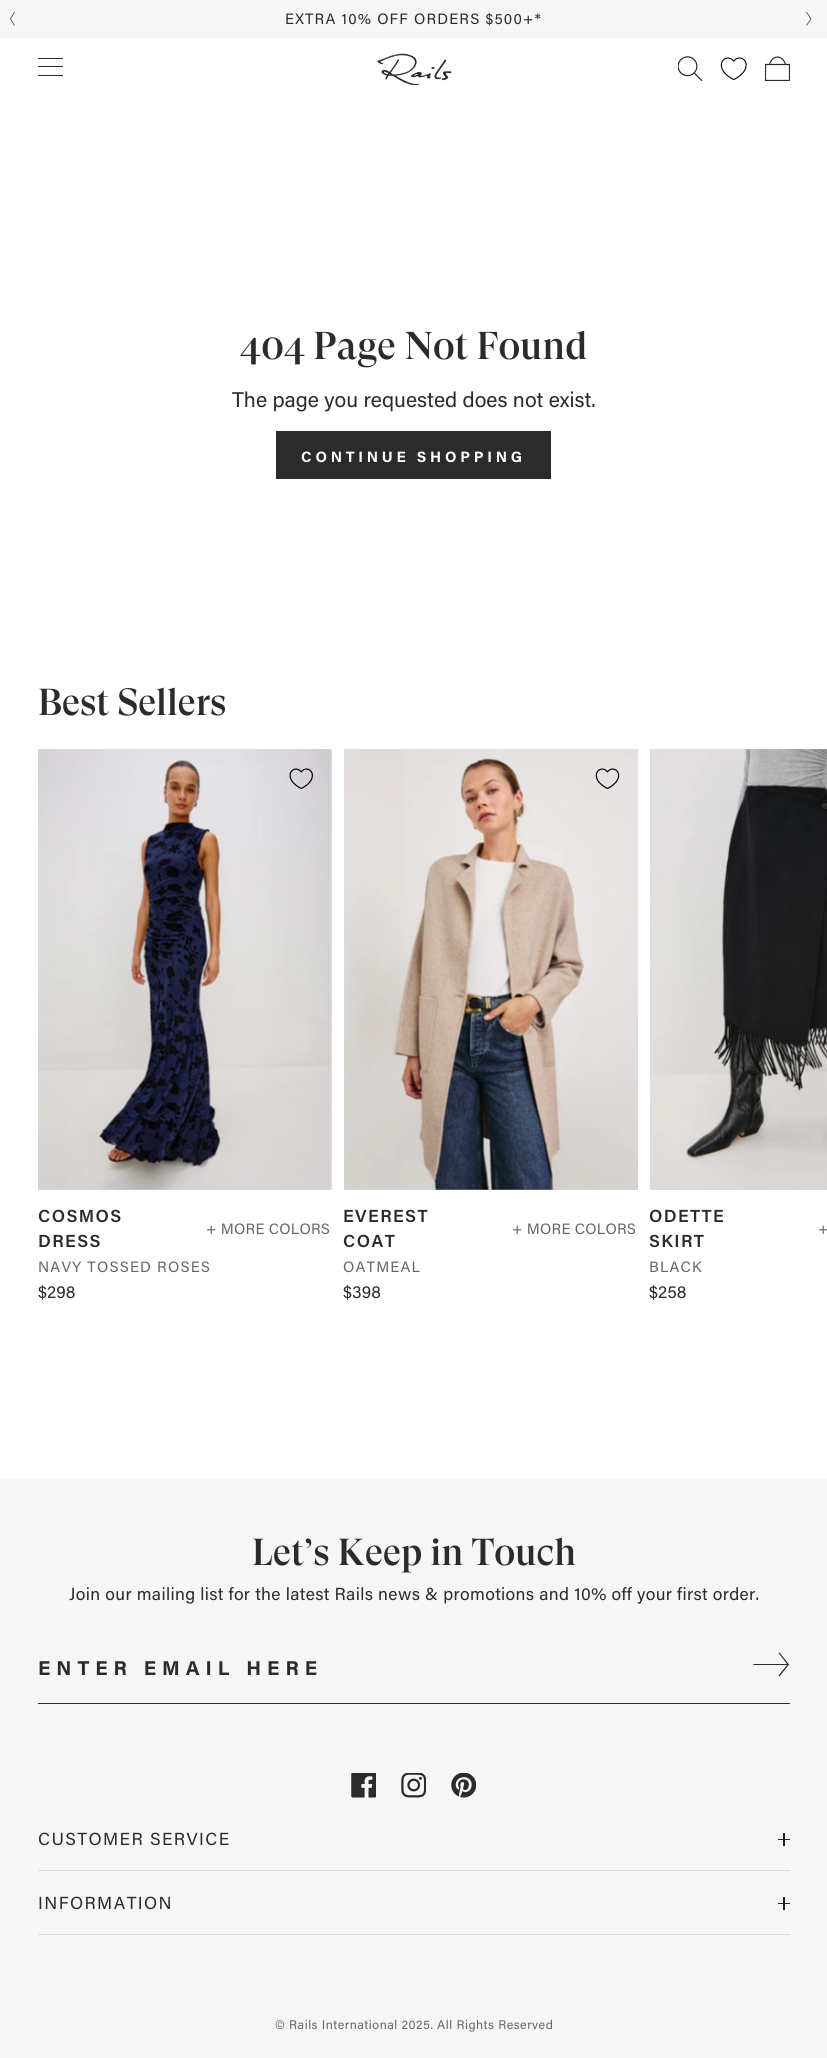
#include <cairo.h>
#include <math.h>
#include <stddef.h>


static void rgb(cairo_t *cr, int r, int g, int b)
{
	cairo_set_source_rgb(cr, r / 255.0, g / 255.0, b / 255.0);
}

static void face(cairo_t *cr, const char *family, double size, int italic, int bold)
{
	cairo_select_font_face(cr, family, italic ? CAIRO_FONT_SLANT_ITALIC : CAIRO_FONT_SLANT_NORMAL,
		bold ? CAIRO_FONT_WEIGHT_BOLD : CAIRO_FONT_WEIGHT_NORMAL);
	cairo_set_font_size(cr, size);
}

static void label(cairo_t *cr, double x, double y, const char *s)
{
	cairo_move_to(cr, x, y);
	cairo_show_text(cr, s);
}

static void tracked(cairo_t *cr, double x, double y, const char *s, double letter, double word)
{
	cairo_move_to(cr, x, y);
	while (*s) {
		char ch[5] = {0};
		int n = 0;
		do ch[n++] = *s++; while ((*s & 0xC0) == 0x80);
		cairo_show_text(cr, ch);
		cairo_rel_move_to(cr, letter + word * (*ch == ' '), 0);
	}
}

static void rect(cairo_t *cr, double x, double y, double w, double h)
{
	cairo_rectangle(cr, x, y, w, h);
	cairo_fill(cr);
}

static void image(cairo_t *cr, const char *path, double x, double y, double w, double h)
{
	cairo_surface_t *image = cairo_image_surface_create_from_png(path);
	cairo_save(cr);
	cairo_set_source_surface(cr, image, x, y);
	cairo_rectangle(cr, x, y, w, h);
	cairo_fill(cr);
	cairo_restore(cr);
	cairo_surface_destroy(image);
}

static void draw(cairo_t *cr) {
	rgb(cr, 255, 255, 255);
	cairo_paint(cr);
	rgb(cr, 246, 246, 246);
	rect(cr, 0, 0, 827, 38);
	cairo_new_path(cr);
	cairo_move_to(cr, 14.5, 12);
	cairo_line_to(cr, 10.5, 19);
	cairo_line_to(cr, 14.5, 25.5);
	rgb(cr, 43, 43, 43);
	cairo_set_line_width(cr, 0.7);
	cairo_stroke(cr);
	face(cr, "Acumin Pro", 15, 0, 0);
	tracked(cr, 285, 24, "EXTRA 10% OFF ORDERS $500+*", 1.2, 0);
	cairo_new_path(cr);
	cairo_move_to(cr, 806.5, 12);
	cairo_line_to(cr, 811, 19);
	cairo_line_to(cr, 806.5, 25.5);
	cairo_stroke(cr);
	rect(cr, 38, 58, 25, 1);
	rect(cr, 38, 66, 25, 1);
	rect(cr, 38, 75, 25, 1);
	image(cr, "image0.png", 377, 53, 75, 32);
	image(cr, "image1.png", 678, 56, 25, 25);
	image(cr, "image2.png", 720, 57, 27, 24);
	cairo_save(cr);
	cairo_rectangle(cr, 765, 56, 25, 25);
	cairo_clip(cr);
	cairo_new_path(cr);
	cairo_move_to(cr, 769.5, 64.5);
	cairo_curve_to(cr, 772.5, 54.5, 782.5, 54.5, 785.5, 64.5);
	cairo_close_path(cr);
	cairo_move_to(cr, 765.5, 64.5);
	cairo_line_to(cr, 789.5, 64.5);
	cairo_line_to(cr, 789.5, 80.5);
	cairo_line_to(cr, 765.5, 80.5);
	cairo_close_path(cr);
	cairo_set_line_width(cr, 1.2);
	cairo_stroke(cr);
	cairo_restore(cr);
	face(cr, "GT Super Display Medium", 38.75, 0, 0);
	label(cr, 240, 359, "404 Page Not Found");
	face(cr, "Acumin Pro", 21.25, 0, 0);
	label(cr, 232, 407, "The page you requested does not exist.");
	rect(cr, 276, 431, 275, 48);
	face(cr, "Acumin Pro", 15, 0, 1);
	rgb(cr, 255, 255, 255);
	tracked(cr, 301, 462, "CONTINUE SHOPPING", 3.75, 0);
	face(cr, "GT Super Display Medium", 37.5, 0, 0);
	rgb(cr, 43, 43, 43);
	label(cr, 38, 715, "Best Sellers");
	rgb(cr, 221, 221, 221);
	rect(cr, 38, 749, 293, 441);
	image(cr, "image3.png", 38, 749, 294, 441);
	image(cr, "image4.png", 289, 768, 24, 22);
	face(cr, "Acumin Pro SemiBold", 17.5, 0, 0);
	rgb(cr, 43, 43, 43);
	tracked(cr, 38, 1222, "COSMOS", 1.4, 0);
	tracked(cr, 38, 1247, "DRESS", 1.4, 0);
	face(cr, "Acumin Pro", 15, 0, 0);
	rgb(cr, 102, 102, 102);
	tracked(cr, 206, 1234, "+ MORE COLORS", 0.25, 0);
	tracked(cr, 38, 1272, "NAVY TOSSED ROSES", 1.2, 0);
	face(cr, "Acumin Pro", 17.5, 0, 0);
	rgb(cr, 43, 43, 43);
	label(cr, 38, 1298, "$298");
	rgb(cr, 221, 221, 221);
	rect(cr, 344, 749, 294, 441);
	image(cr, "image5.png", 344, 749, 294, 441);
	image(cr, "image6.png", 595, 768, 25, 22);
	face(cr, "Acumin Pro SemiBold", 17.5, 0, 0);
	rgb(cr, 43, 43, 43);
	tracked(cr, 343, 1222, "EVEREST", 1.4, 0);
	tracked(cr, 343, 1247, "COAT", 1.4, 0);
	face(cr, "Acumin Pro", 15, 0, 0);
	rgb(cr, 102, 102, 102);
	tracked(cr, 512, 1234, "+ MORE COLORS", 0.25, 0);
	tracked(cr, 343, 1272, "OATMEAL", 1.2, 0);
	face(cr, "Acumin Pro", 17.5, 0, 0);
	rgb(cr, 43, 43, 43);
	label(cr, 343, 1298, "$398");
	rgb(cr, 221, 221, 221);
	rect(cr, 650, 749, 177, 441);
	image(cr, "image7.png", 650, 749, 177, 441);
	face(cr, "Acumin Pro SemiBold", 17.5, 0, 0);
	rgb(cr, 43, 43, 43);
	tracked(cr, 649, 1222, "ODETTE", 1.4, 0);
	tracked(cr, 649, 1247, "SKIRT", 1.4, 0);
	face(cr, "Acumin Pro", 15, 0, 0);
	rgb(cr, 102, 102, 102);
	tracked(cr, 818, 1234, "+", 0.25, 0);
	tracked(cr, 649, 1272, "BLACK", 1.2, 0);
	face(cr, "Acumin Pro", 17.5, 0, 0);
	rgb(cr, 43, 43, 43);
	label(cr, 649, 1298, "$258");
	rgb(cr, 246, 246, 246);
	rect(cr, 0, 1478, 827, 580);
	face(cr, "GT Super Display Medium", 37.5, 0, 0);
	rgb(cr, 43, 43, 43);
	label(cr, 252, 1565, "Let’s Keep in Touch");
	face(cr, "Acumin Pro", 17.5, 0, 0);
	tracked(cr, 69, 1600, "Join our mailing list for the latest Rails news & promotions and 10% off your first order.", 0.35, 0);
	rect(cr, 38, 1703, 752, 1);
	face(cr, "Acumin Pro", 20, 0, 1);
	tracked(cr, 38, 1675, "ENTER EMAIL HERE", 6, 0);
	cairo_set_fill_rule(cr, CAIRO_FILL_RULE_EVEN_ODD);
	cairo_new_path(cr);
	cairo_move_to(cr, 787, 1665);
	cairo_line_to(cr, 753.5, 1665);
	cairo_line_to(cr, 753.5, 1664);
	cairo_line_to(cr, 787, 1664);
	cairo_line_to(cr, 778.5, 1653);
	cairo_line_to(cr, 779.5, 1652.5);
	cairo_line_to(cr, 789, 1664.5);
	cairo_line_to(cr, 779.5, 1676.5);
	cairo_line_to(cr, 778.5, 1675.5);
	cairo_close_path(cr);
	cairo_fill(cr);
	image(cr, "image8.png", 351, 1773, 25, 25);
	image(cr, "image9.png", 401, 1773, 25, 25);
	image(cr, "image10.png", 451, 1773, 25, 25);
	rgb(cr, 221, 221, 221);
	rect(cr, 38, 1870, 752, 1);
	face(cr, "Acumin Pro", 17.5, 0, 0);
	rgb(cr, 43, 43, 43);
	tracked(cr, 38, 1845, "CUSTOMER SERVICE", 1.4, 0);
	rgb(cr, 35, 31, 32);
	rect(cr, 783, 1833, 2, 13);
	rect(cr, 778, 1839, 12, 1);
	rgb(cr, 221, 221, 221);
	rect(cr, 38, 1934, 752, 1);
	rgb(cr, 43, 43, 43);
	tracked(cr, 38, 1909, "INFORMATION", 1.4, 0);
	rgb(cr, 35, 31, 32);
	rect(cr, 783, 1897, 2, 13);
	rect(cr, 778, 1903, 12, 1);
	face(cr, "Acumin Pro", 12.5, 0, 0);
	rgb(cr, 102, 102, 102);
	tracked(cr, 275, 2029, "© Rails International 2025. All Rights Reserved", 0.5, 0);
}

int main(void) {
	cairo_surface_t *surface = cairo_image_surface_create(CAIRO_FORMAT_RGB24, 827, 2058);
	cairo_t *cr = cairo_create(surface);
	cairo_font_options_t *options = cairo_font_options_create();
	cairo_font_options_set_hint_metrics(options, CAIRO_HINT_METRICS_OFF);
	cairo_font_options_set_hint_style(options, CAIRO_HINT_STYLE_NONE);
	cairo_set_font_options(cr, options);
	cairo_set_miter_limit(cr, 4);
	draw(cr);
	cairo_surface_write_to_png(surface, "render.png");
	cairo_font_options_destroy(options);
	cairo_destroy(cr);
	cairo_surface_destroy(surface);
	return 0;
}
